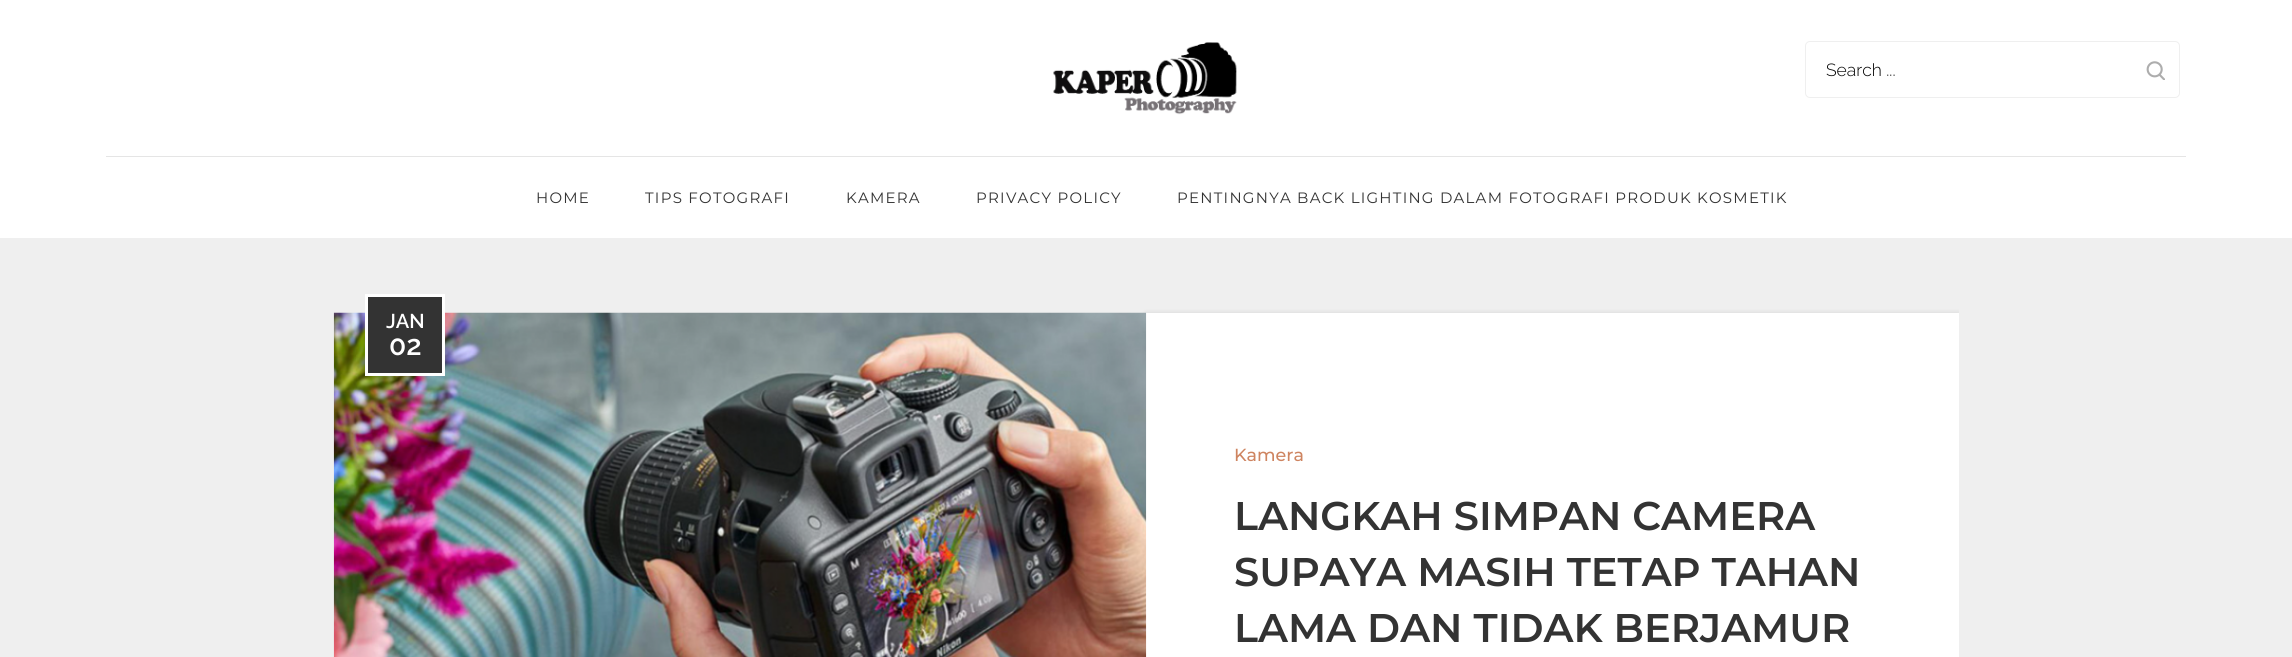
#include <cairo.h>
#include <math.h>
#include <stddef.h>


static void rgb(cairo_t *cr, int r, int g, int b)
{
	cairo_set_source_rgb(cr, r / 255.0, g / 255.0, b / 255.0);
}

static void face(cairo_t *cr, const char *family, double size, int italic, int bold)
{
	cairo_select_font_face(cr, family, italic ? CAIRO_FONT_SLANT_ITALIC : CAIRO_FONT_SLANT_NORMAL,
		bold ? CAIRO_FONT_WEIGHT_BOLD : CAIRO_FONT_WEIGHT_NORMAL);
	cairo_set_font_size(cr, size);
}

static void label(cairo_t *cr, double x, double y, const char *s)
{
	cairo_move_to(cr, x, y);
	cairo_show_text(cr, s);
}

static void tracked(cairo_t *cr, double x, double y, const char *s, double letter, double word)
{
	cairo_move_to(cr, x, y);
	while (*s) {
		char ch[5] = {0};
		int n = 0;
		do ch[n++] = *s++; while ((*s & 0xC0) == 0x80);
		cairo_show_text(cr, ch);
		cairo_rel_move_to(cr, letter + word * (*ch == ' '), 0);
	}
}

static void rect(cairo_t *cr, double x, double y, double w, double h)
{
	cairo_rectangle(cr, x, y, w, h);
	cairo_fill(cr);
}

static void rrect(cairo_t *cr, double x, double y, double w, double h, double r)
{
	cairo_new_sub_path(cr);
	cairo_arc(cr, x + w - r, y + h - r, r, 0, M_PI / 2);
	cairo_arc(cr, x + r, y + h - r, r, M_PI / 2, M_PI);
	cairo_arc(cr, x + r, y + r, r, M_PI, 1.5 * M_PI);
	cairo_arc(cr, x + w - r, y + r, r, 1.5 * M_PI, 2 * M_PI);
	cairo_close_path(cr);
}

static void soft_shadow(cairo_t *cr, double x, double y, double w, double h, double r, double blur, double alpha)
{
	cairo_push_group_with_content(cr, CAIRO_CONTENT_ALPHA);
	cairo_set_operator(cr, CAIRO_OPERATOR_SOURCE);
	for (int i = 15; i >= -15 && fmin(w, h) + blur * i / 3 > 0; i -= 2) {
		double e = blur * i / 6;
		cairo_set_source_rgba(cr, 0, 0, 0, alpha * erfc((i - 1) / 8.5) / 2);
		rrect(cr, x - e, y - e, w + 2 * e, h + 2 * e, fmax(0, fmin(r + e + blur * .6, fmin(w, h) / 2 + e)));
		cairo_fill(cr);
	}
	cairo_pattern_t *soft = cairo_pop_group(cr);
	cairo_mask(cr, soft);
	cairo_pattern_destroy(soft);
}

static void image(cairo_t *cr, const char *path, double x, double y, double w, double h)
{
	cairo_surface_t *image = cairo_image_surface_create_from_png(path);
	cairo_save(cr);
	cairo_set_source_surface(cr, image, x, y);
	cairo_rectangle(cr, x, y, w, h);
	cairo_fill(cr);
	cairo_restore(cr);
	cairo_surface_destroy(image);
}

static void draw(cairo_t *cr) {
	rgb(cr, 239, 239, 239);
	cairo_paint(cr);
	rgb(cr, 255, 255, 255);
	rect(cr, 0, 0, 2292, 238);
	rrect(cr, 1805.5, 41.5, 374, 56, 4.5);
	rgb(cr, 239, 239, 239);
	cairo_set_line_width(cr, 1);
	cairo_stroke(cr);
	face(cr, "Raleway Light", 17.5, 0, 0);
	rgb(cr, 0, 0, 0);
	label(cr, 1826, 76, "Search ...");
	image(cr, "image0.png", 2146, 61, 19, 19);
	image(cr, "image1.png", 1053, 42, 184, 73);
	rgb(cr, 229, 229, 229);
	rect(cr, 106, 156, 2080, 1);
	face(cr, "Montserrat", 15, 0, 0);
	rgb(cr, 51, 51, 51);
	tracked(cr, 536, 203, "HOME", 1.25, 0);
	tracked(cr, 645, 203, "TIPS FOTOGRAFI", 1.25, 0);
	tracked(cr, 846, 203, "KAMERA", 1.25, 0);
	tracked(cr, 976, 203, "PRIVACY POLICY", 1.25, 0);
	tracked(cr, 1177, 203, "PENTINGNYA BACK LIGHTING DALAM FOTOGRAFI PRODUK KOSMETIK", 1.25, 0);
	cairo_save(cr);
	cairo_rectangle(cr, 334, 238, 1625, 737);
	cairo_clip(cr);
	rgb(cr, 3, 3, 3);
	soft_shadow(cr, 1146, 314, 813, 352, 0, 3, 0.15);
	cairo_restore(cr);
	rgb(cr, 255, 255, 255);
	rect(cr, 1146, 313, 813, 344);
	image(cr, "image2.png", 333, 312, 814, 345);
	rgb(cr, 51, 51, 51);
	cairo_rectangle(cr, 366.5, 295.5, 77, 79);
	cairo_fill_preserve(cr);
	rgb(cr, 255, 255, 255);
	cairo_set_line_width(cr, 3);
	cairo_stroke(cr);
	face(cr, "Raleway SemiBold", 20, 0, 0);
	label(cr, 386, 328, "JAN");
	face(cr, "Raleway SemiBold", 28, 0, 0);
	label(cr, 389, 355, "02");
	face(cr, "Montserrat Medium", 17.5, 0, 0);
	rgb(cr, 206, 132, 96);
	label(cr, 1234, 461, "Kamera");
	face(cr, "Montserrat SemiBold", 40, 0, 0);
	rgb(cr, 51, 51, 51);
	label(cr, 1234, 530, "LANGKAH SIMPAN CAMERA");
	label(cr, 1234, 586, "SUPAYA MASIH TETAP TAHAN");
	label(cr, 1234, 642, "LAMA DAN TIDAK BERJAMUR");
}

int main(void) {
	cairo_surface_t *surface = cairo_image_surface_create(CAIRO_FORMAT_RGB24, 2292, 657);
	cairo_t *cr = cairo_create(surface);
	cairo_font_options_t *options = cairo_font_options_create();
	cairo_font_options_set_hint_metrics(options, CAIRO_HINT_METRICS_OFF);
	cairo_font_options_set_hint_style(options, CAIRO_HINT_STYLE_NONE);
	cairo_set_font_options(cr, options);
	cairo_set_miter_limit(cr, 4);
	draw(cr);
	cairo_surface_write_to_png(surface, "render.png");
	cairo_font_options_destroy(options);
	cairo_destroy(cr);
	cairo_surface_destroy(surface);
	return 0;
}
